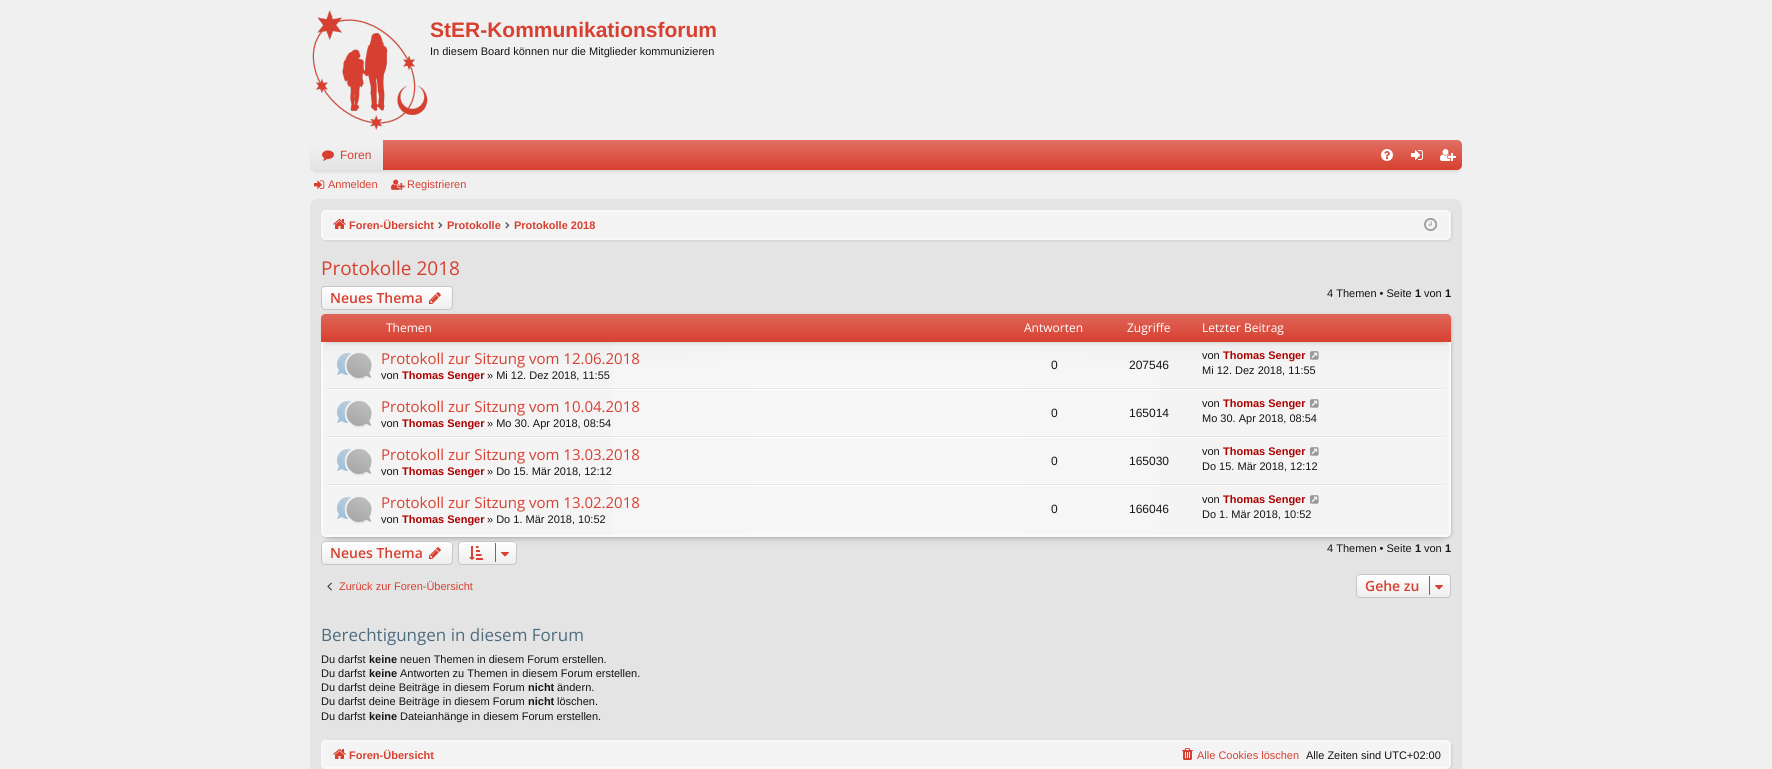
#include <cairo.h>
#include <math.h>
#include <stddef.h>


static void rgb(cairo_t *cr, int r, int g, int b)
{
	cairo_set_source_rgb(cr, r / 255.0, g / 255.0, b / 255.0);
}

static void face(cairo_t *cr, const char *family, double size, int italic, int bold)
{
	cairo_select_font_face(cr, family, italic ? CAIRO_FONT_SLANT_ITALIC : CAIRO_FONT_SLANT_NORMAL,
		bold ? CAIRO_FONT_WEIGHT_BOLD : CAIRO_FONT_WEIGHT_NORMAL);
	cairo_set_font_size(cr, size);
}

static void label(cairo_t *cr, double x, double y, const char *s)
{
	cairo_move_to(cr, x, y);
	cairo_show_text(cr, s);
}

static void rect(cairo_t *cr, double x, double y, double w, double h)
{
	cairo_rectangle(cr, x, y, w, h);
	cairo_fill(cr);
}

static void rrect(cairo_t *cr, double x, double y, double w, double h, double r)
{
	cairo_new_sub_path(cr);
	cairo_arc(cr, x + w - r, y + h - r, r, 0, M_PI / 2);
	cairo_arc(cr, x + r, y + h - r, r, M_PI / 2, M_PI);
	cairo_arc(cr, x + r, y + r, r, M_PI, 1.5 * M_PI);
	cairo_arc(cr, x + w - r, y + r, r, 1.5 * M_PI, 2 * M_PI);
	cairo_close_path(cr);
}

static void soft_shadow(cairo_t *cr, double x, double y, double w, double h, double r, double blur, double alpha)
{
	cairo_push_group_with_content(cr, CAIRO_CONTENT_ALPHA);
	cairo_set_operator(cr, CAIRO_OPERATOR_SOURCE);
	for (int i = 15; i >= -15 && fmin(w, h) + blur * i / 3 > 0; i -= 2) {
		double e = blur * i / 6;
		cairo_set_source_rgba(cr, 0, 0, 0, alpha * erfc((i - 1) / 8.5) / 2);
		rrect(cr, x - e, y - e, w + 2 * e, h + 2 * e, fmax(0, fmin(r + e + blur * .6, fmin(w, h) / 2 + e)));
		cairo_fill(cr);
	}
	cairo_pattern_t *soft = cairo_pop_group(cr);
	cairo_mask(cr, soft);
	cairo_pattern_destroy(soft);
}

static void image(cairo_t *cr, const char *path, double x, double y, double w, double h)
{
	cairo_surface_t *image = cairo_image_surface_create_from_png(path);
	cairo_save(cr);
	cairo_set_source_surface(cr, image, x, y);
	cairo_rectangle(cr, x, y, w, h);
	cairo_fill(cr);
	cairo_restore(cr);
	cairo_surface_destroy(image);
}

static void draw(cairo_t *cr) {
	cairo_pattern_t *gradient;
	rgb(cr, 240, 240, 240);
	cairo_paint(cr);
	image(cr, "image0.png", 312, 10, 116, 120);
	face(cr, "Liberation Sans", 21, 0, 1);
	rgb(cr, 215, 64, 48);
	label(cr, 430, 37, "StER-Kommunikationsforum");
	face(cr, "Liberation Sans", 11, 0, 0);
	rgb(cr, 20, 20, 20);
	label(cr, 430, 55, "In diesem Board können nur die Mitglieder kommunizieren");
	rgb(cr, 0, 0, 0);
	soft_shadow(cr, 315, 150, 1142, 20, 0, 2.5, 0.2);
	rgb(cr, 215, 64, 48);
	rrect(cr, 310, 140, 1152, 30, 5);
	cairo_fill(cr);
	gradient = cairo_pattern_create_linear(886, 140, 886, 170);
	cairo_pattern_add_color_stop_rgba(gradient, 0, 1, 1, 1, 0.25);
	cairo_pattern_add_color_stop_rgba(gradient, 1, 1, 1, 1, 0);
	cairo_set_source(cr, gradient);
	cairo_pattern_destroy(gradient);
	rrect(cr, 310, 140, 1152, 30, 5);
	cairo_fill(cr);
	gradient = cairo_pattern_create_linear(347, 140, 347, 170);
	cairo_pattern_add_color_stop_rgba(gradient, 0, 0.949, 0.949, 0.949, 1);
	cairo_pattern_add_color_stop_rgba(gradient, 1, 0.894, 0.894, 0.894, 1);
	cairo_set_source(cr, gradient);
	cairo_pattern_destroy(gradient);
	rect(cr, 310, 140, 73, 30);
	image(cr, "image1.png", 322, 150, 12, 11);
	face(cr, "Liberation Sans", 12, 0, 0);
	rgb(cr, 215, 64, 48);
	label(cr, 340, 159, "Foren");
	image(cr, "image2.png", 1381, 149, 12, 12);
	image(cr, "image3.png", 1411, 150, 12, 10);
	image(cr, "image4.png", 1440, 149, 16, 12);
	image(cr, "image5.png", 314, 180, 11, 9);
	face(cr, "Liberation Sans", 11, 0, 0);
	label(cr, 328, 188, "Anmelden");
	image(cr, "image6.png", 391, 179, 14, 11);
	label(cr, 407, 188, "Registrieren");
	rgb(cr, 228, 228, 228);
	rrect(cr, 310.5, 199.5, 1151, 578, 7.5);
	cairo_fill_preserve(cr);
	cairo_set_line_width(cr, 1);
	cairo_stroke(cr);
	rgb(cr, 0, 0, 0);
	soft_shadow(cr, 322, 211, 1130, 30, 5, 1, 0.1);
	rgb(cr, 244, 244, 244);
	rrect(cr, 321, 210, 1130, 30, 5);
	cairo_fill(cr);
	rrect(cr, 322.5, 211.5, 1127, 27, 3.5);
	rgb(cr, 250, 250, 250);
	cairo_stroke(cr);
	rrect(cr, 321.5, 210.5, 1129, 29, 4.5);
	rgb(cr, 249, 249, 249);
	cairo_stroke(cr);
	image(cr, "image7.png", 333, 219, 13, 10);
	face(cr, "Liberation Sans", 11, 0, 1);
	rgb(cr, 215, 64, 48);
	label(cr, 349, 229, "Foren-Übersicht");
	image(cr, "image8.png", 438, 222, 5, 7);
	label(cr, 447, 229, "Protokolle");
	image(cr, "image8.png", 505, 222, 5, 7);
	label(cr, 514, 229, "Protokolle 2018");
	image(cr, "image9.png", 1424, 217, 14, 15);
	face(cr, "Open Sans", 19, 0, 0);
	label(cr, 321, 275, "Protokolle 2018");
	rgb(cr, 0, 0, 0);
	soft_shadow(cr, 322, 315, 1130, 223, 5, 1.5, 0.15);
	rgb(cr, 238, 238, 238);
	rrect(cr, 321, 286, 132, 24, 4);
	cairo_fill(cr);
	cairo_save(cr);
	rrect(cr, 321, 286, 132, 24, 4);
	cairo_clip(cr);
	gradient = cairo_pattern_create_linear(387, 287, 387, 309);
	cairo_pattern_add_color_stop_rgba(gradient, 0, 1, 1, 1, 1);
	cairo_pattern_add_color_stop_rgba(gradient, 1, 1, 1, 1, 0);
	cairo_set_source(cr, gradient);
	cairo_pattern_destroy(gradient);
	rect(cr, 321, 287, 132, 22);
	cairo_restore(cr);
	rrect(cr, 321.5, 286.5, 131, 23, 3.5);
	rgb(cr, 198, 198, 198);
	cairo_stroke(cr);
	face(cr, "Open Sans SemiBold", 14, 0, 0);
	rgb(cr, 215, 64, 48);
	label(cr, 330, 303, "Neues Thema");
	image(cr, "image10.png", 429, 292, 12, 12);
	face(cr, "Liberation Sans", 11, 0, 0);
	rgb(cr, 20, 20, 20);
	label(cr, 1327, 297, "4 Themen • Seite");
	face(cr, "Liberation Sans", 11, 0, 1);
	label(cr, 1415, 297, "1");
	face(cr, "Liberation Sans", 11, 0, 0);
	label(cr, 1424, 297, "von");
	face(cr, "Liberation Sans", 11, 0, 1);
	label(cr, 1445, 297, "1");
	rgb(cr, 0, 0, 0);
	soft_shadow(cr, 331, 334, 1110, 203, 0, 5, 0.2);
	rgb(cr, 244, 244, 244);
	rrect(cr, 321, 314, 1130, 223, 5);
	cairo_fill(cr);
	cairo_save(cr);
	rrect(cr, 321, 314, 1130, 223, 5);
	cairo_clip(cr);
	gradient = cairo_pattern_create_linear(886, 315, 886, 536);
	cairo_pattern_add_color_stop_rgba(gradient, 0, 0.8, 0.8, 0.8, 0.2);
	cairo_pattern_add_color_stop_rgba(gradient, 0.05, 0.8, 0.8, 0.8, 0.25);
	cairo_pattern_add_color_stop_rgba(gradient, 0.23, 0.8, 0.8, 0.8, 0);
	cairo_set_source(cr, gradient);
	cairo_pattern_destroy(gradient);
	rect(cr, 321, 315, 1130, 47);
	cairo_restore(cr);
	gradient = cairo_pattern_create_linear(322, 426, 1450, 425);
	cairo_pattern_add_color_stop_rgba(gradient, 0, 1, 1, 1, 0);
	cairo_pattern_add_color_stop_rgba(gradient, 0.5, 1, 1, 1, 0.3);
	cairo_pattern_add_color_stop_rgba(gradient, 1, 1, 1, 1, 0);
	cairo_set_source(cr, gradient);
	cairo_pattern_destroy(gradient);
	rect(cr, 613, 342, 546, 194);
	rrect(cr, 322.5, 315.5, 1127, 220, 3.5);
	cairo_set_source_rgba(cr, 1, 1, 1, 0.5);
	cairo_stroke(cr);
	rrect(cr, 321.5, 314.5, 1129, 222, 4.5);
	rgb(cr, 249, 249, 249);
	cairo_stroke(cr);
	rgb(cr, 0, 0, 0);
	soft_shadow(cr, 326, 324, 1120, 18, 0, 2.5, 0.2);
	rgb(cr, 215, 64, 48);
	cairo_new_path(cr);
	cairo_move_to(cr, 325, 314);
	cairo_line_to(cr, 1447, 314);
	cairo_curve_to(cr, 1449, 314, 1451, 316, 1451, 318);
	cairo_line_to(cr, 1451, 342);
	cairo_line_to(cr, 321, 342);
	cairo_line_to(cr, 321, 318);
	cairo_curve_to(cr, 321, 316, 323, 314, 325, 314);
	cairo_close_path(cr);
	cairo_fill(cr);
	gradient = cairo_pattern_create_linear(886, 314, 886, 342);
	cairo_pattern_add_color_stop_rgba(gradient, 0, 1, 1, 1, 0.2);
	cairo_pattern_add_color_stop_rgba(gradient, 1, 1, 1, 1, 0);
	cairo_set_source(cr, gradient);
	cairo_pattern_destroy(gradient);
	cairo_new_path(cr);
	cairo_move_to(cr, 325, 314);
	cairo_line_to(cr, 1447, 314);
	cairo_curve_to(cr, 1449, 314, 1451, 316, 1451, 318);
	cairo_line_to(cr, 1451, 342);
	cairo_line_to(cr, 321, 342);
	cairo_line_to(cr, 321, 318);
	cairo_curve_to(cr, 321, 316, 323, 314, 325, 314);
	cairo_close_path(cr);
	cairo_fill(cr);
	face(cr, "Open Sans", 12, 0, 0);
	rgb(cr, 255, 255, 255);
	label(cr, 386, 332, "Themen");
	label(cr, 1024, 332, "Antworten");
	label(cr, 1127, 332, "Zugriffe");
	label(cr, 1202, 332, "Letzter Beitrag");
	rgb(cr, 231, 231, 231);
	rect(cr, 326, 388, 1120, 1);
	image(cr, "image11.png", 337, 353, 35, 27);
	face(cr, "Open Sans", 15, 0, 0);
	rgb(cr, 215, 64, 48);
	label(cr, 381, 364, "Protokoll zur Sitzung vom 12.06.2018");
	face(cr, "Liberation Sans", 11, 0, 0);
	rgb(cr, 20, 20, 20);
	label(cr, 381, 379, "von");
	face(cr, "Liberation Sans", 11, 0, 1);
	rgb(cr, 170, 0, 0);
	label(cr, 402, 379, "Thomas Senger");
	face(cr, "Liberation Sans", 11, 0, 0);
	rgb(cr, 20, 20, 20);
	label(cr, 487, 379, "» Mi 12. Dez 2018, 11:55");
	face(cr, "Liberation Sans", 12, 0, 0);
	label(cr, 1051, 369, "0");
	label(cr, 1129, 369, "207546");
	face(cr, "Liberation Sans", 11, 0, 0);
	label(cr, 1202, 359, "von");
	face(cr, "Liberation Sans", 11, 0, 1);
	rgb(cr, 170, 0, 0);
	label(cr, 1223, 359, "Thomas Senger");
	image(cr, "image12.png", 1310, 351, 9, 9);
	face(cr, "Liberation Sans", 11, 0, 0);
	rgb(cr, 20, 20, 20);
	label(cr, 1202, 374, "Mi 12. Dez 2018, 11:55");
	rgb(cr, 255, 255, 255);
	rect(cr, 326, 389, 1120, 1);
	rgb(cr, 231, 231, 231);
	rect(cr, 326, 436, 1120, 1);
	image(cr, "image13.png", 337, 401, 35, 27);
	face(cr, "Open Sans", 15, 0, 0);
	rgb(cr, 215, 64, 48);
	label(cr, 381, 412, "Protokoll zur Sitzung vom 10.04.2018");
	face(cr, "Liberation Sans", 11, 0, 0);
	rgb(cr, 20, 20, 20);
	label(cr, 381, 427, "von");
	face(cr, "Liberation Sans", 11, 0, 1);
	rgb(cr, 170, 0, 0);
	label(cr, 402, 427, "Thomas Senger");
	face(cr, "Liberation Sans", 11, 0, 0);
	rgb(cr, 20, 20, 20);
	label(cr, 487, 427, "» Mo 30. Apr 2018, 08:54");
	face(cr, "Liberation Sans", 12, 0, 0);
	label(cr, 1051, 417, "0");
	label(cr, 1129, 417, "165014");
	face(cr, "Liberation Sans", 11, 0, 0);
	label(cr, 1202, 407, "von");
	face(cr, "Liberation Sans", 11, 0, 1);
	rgb(cr, 170, 0, 0);
	label(cr, 1223, 407, "Thomas Senger");
	image(cr, "image14.png", 1310, 399, 9, 9);
	face(cr, "Liberation Sans", 11, 0, 0);
	rgb(cr, 20, 20, 20);
	label(cr, 1202, 422, "Mo 30. Apr 2018, 08:54");
	rgb(cr, 255, 255, 255);
	rect(cr, 326, 437, 1120, 1);
	rgb(cr, 231, 231, 231);
	rect(cr, 326, 484, 1120, 1);
	image(cr, "image13.png", 337, 449, 35, 27);
	face(cr, "Open Sans", 15, 0, 0);
	rgb(cr, 215, 64, 48);
	label(cr, 381, 460, "Protokoll zur Sitzung vom 13.03.2018");
	face(cr, "Liberation Sans", 11, 0, 0);
	rgb(cr, 20, 20, 20);
	label(cr, 381, 475, "von");
	face(cr, "Liberation Sans", 11, 0, 1);
	rgb(cr, 170, 0, 0);
	label(cr, 402, 475, "Thomas Senger");
	face(cr, "Liberation Sans", 11, 0, 0);
	rgb(cr, 20, 20, 20);
	label(cr, 487, 475, "» Do 15. Mär 2018, 12:12");
	face(cr, "Liberation Sans", 12, 0, 0);
	label(cr, 1051, 465, "0");
	label(cr, 1129, 465, "165030");
	face(cr, "Liberation Sans", 11, 0, 0);
	label(cr, 1202, 455, "von");
	face(cr, "Liberation Sans", 11, 0, 1);
	rgb(cr, 170, 0, 0);
	label(cr, 1223, 455, "Thomas Senger");
	image(cr, "image14.png", 1310, 447, 9, 9);
	face(cr, "Liberation Sans", 11, 0, 0);
	rgb(cr, 20, 20, 20);
	label(cr, 1202, 470, "Do 15. Mär 2018, 12:12");
	rgb(cr, 255, 255, 255);
	rect(cr, 326, 485, 1120, 1);
	image(cr, "image15.png", 337, 497, 35, 27);
	face(cr, "Open Sans", 15, 0, 0);
	rgb(cr, 215, 64, 48);
	label(cr, 381, 508, "Protokoll zur Sitzung vom 13.02.2018");
	face(cr, "Liberation Sans", 11, 0, 0);
	rgb(cr, 20, 20, 20);
	label(cr, 381, 523, "von");
	face(cr, "Liberation Sans", 11, 0, 1);
	rgb(cr, 170, 0, 0);
	label(cr, 402, 523, "Thomas Senger");
	face(cr, "Liberation Sans", 11, 0, 0);
	rgb(cr, 20, 20, 20);
	label(cr, 487, 523, "» Do 1. Mär 2018, 10:52");
	face(cr, "Liberation Sans", 12, 0, 0);
	label(cr, 1051, 513, "0");
	label(cr, 1129, 513, "166046");
	face(cr, "Liberation Sans", 11, 0, 0);
	label(cr, 1202, 503, "von");
	face(cr, "Liberation Sans", 11, 0, 1);
	rgb(cr, 170, 0, 0);
	label(cr, 1223, 503, "Thomas Senger");
	image(cr, "image14.png", 1310, 495, 9, 9);
	face(cr, "Liberation Sans", 11, 0, 0);
	rgb(cr, 20, 20, 20);
	label(cr, 1202, 518, "Do 1. Mär 2018, 10:52");
	rgb(cr, 238, 238, 238);
	rrect(cr, 321, 541, 132, 24, 4);
	cairo_fill(cr);
	cairo_save(cr);
	rrect(cr, 321, 541, 132, 24, 4);
	cairo_clip(cr);
	gradient = cairo_pattern_create_linear(387, 542, 387, 564);
	cairo_pattern_add_color_stop_rgba(gradient, 0, 1, 1, 1, 1);
	cairo_pattern_add_color_stop_rgba(gradient, 1, 1, 1, 1, 0);
	cairo_set_source(cr, gradient);
	cairo_pattern_destroy(gradient);
	rect(cr, 321, 542, 132, 22);
	cairo_restore(cr);
	rrect(cr, 321.5, 541.5, 131, 23, 3.5);
	rgb(cr, 198, 198, 198);
	cairo_stroke(cr);
	face(cr, "Open Sans SemiBold", 14, 0, 0);
	rgb(cr, 215, 64, 48);
	label(cr, 330, 558, "Neues Thema");
	image(cr, "image10.png", 429, 547, 12, 12);
	rgb(cr, 238, 238, 238);
	rrect(cr, 458, 541, 59, 24, 4);
	cairo_fill(cr);
	cairo_save(cr);
	rrect(cr, 458, 541, 59, 24, 4);
	cairo_clip(cr);
	gradient = cairo_pattern_create_linear(488, 542, 488, 564);
	cairo_pattern_add_color_stop_rgba(gradient, 0, 1, 1, 1, 1);
	cairo_pattern_add_color_stop_rgba(gradient, 1, 1, 1, 1, 0);
	cairo_set_source(cr, gradient);
	cairo_pattern_destroy(gradient);
	rect(cr, 458, 542, 59, 22);
	cairo_restore(cr);
	rrect(cr, 458.5, 541.5, 58, 23, 3.5);
	rgb(cr, 198, 198, 198);
	cairo_stroke(cr);
	image(cr, "image16.png", 469, 546, 14, 14);
	rgb(cr, 215, 64, 48);
	rect(cr, 495, 543, 1, 19);
	image(cr, "image17.png", 501, 552, 8, 5);
	face(cr, "Liberation Sans", 11, 0, 0);
	rgb(cr, 20, 20, 20);
	label(cr, 1327, 552, "4 Themen • Seite");
	face(cr, "Liberation Sans", 11, 0, 1);
	label(cr, 1415, 552, "1");
	face(cr, "Liberation Sans", 11, 0, 0);
	label(cr, 1424, 552, "von");
	face(cr, "Liberation Sans", 11, 0, 1);
	label(cr, 1445, 552, "1");
	image(cr, "image18.png", 327, 582, 5, 9);
	face(cr, "Liberation Sans", 11, 0, 0);
	rgb(cr, 215, 64, 48);
	label(cr, 339, 590, "Zurück zur Foren-Übersicht");
	rgb(cr, 238, 238, 238);
	rrect(cr, 1356, 574, 95, 24, 4);
	cairo_fill(cr);
	cairo_save(cr);
	rrect(cr, 1356, 574, 95, 24, 4);
	cairo_clip(cr);
	gradient = cairo_pattern_create_linear(1404, 575, 1404, 597);
	cairo_pattern_add_color_stop_rgba(gradient, 0, 1, 1, 1, 1);
	cairo_pattern_add_color_stop_rgba(gradient, 1, 1, 1, 1, 0);
	cairo_set_source(cr, gradient);
	cairo_pattern_destroy(gradient);
	rect(cr, 1356, 575, 95, 22);
	cairo_restore(cr);
	rrect(cr, 1356.5, 574.5, 94, 23, 3.5);
	rgb(cr, 198, 198, 198);
	cairo_stroke(cr);
	face(cr, "Open Sans SemiBold", 14, 0, 0);
	rgb(cr, 215, 64, 48);
	label(cr, 1365, 591, "Gehe zu");
	rect(cr, 1429, 576, 1, 19);
	image(cr, "image17.png", 1435, 585, 8, 5);
	face(cr, "Open Sans", 17, 0, 0);
	rgb(cr, 79, 108, 127);
	label(cr, 321, 641, "Berechtigungen in diesem Forum");
	face(cr, "Liberation Sans", 11, 0, 0);
	rgb(cr, 20, 20, 20);
	label(cr, 321, 663, "Du darfst");
	face(cr, "Liberation Sans", 11, 0, 1);
	label(cr, 369, 663, "keine");
	face(cr, "Liberation Sans", 11, 0, 0);
	label(cr, 400, 663, "neuen Themen in diesem Forum erstellen.");
	label(cr, 321, 677, "Du darfst");
	face(cr, "Liberation Sans", 11, 0, 1);
	label(cr, 369, 677, "keine");
	face(cr, "Liberation Sans", 11, 0, 0);
	label(cr, 400, 677, "Antworten zu Themen in diesem Forum erstellen.");
	label(cr, 321, 691, "Du darfst deine Beiträge in diesem Forum");
	face(cr, "Liberation Sans", 11, 0, 1);
	label(cr, 528, 691, "nicht");
	face(cr, "Liberation Sans", 11, 0, 0);
	label(cr, 557, 691, "ändern.");
	label(cr, 321, 705, "Du darfst deine Beiträge in diesem Forum");
	face(cr, "Liberation Sans", 11, 0, 1);
	label(cr, 528, 705, "nicht");
	face(cr, "Liberation Sans", 11, 0, 0);
	label(cr, 557, 705, "löschen.");
	label(cr, 321, 720, "Du darfst");
	face(cr, "Liberation Sans", 11, 0, 1);
	label(cr, 369, 720, "keine");
	face(cr, "Liberation Sans", 11, 0, 0);
	label(cr, 400, 720, "Dateianhänge in diesem Forum erstellen.");
	rgb(cr, 0, 0, 0);
	soft_shadow(cr, 322, 741, 1130, 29, 5, 1, 0.1);
	rgb(cr, 244, 244, 244);
	rrect(cr, 321, 740, 1130, 29, 5);
	cairo_fill(cr);
	rrect(cr, 322.5, 741.5, 1127, 26, 3.5);
	rgb(cr, 250, 250, 250);
	cairo_stroke(cr);
	rrect(cr, 321.5, 740.5, 1129, 28, 4.5);
	rgb(cr, 249, 249, 249);
	cairo_stroke(cr);
	image(cr, "image7.png", 333, 749, 13, 10);
	face(cr, "Liberation Sans", 11, 0, 1);
	rgb(cr, 215, 64, 48);
	label(cr, 349, 759, "Foren-Übersicht");
	image(cr, "image19.png", 1182, 748, 11, 12);
	face(cr, "Liberation Sans", 11, 0, 0);
	label(cr, 1197, 759, "Alle Cookies löschen");
	rgb(cr, 20, 20, 20);
	label(cr, 1306, 759, "Alle Zeiten sind UTC+02:00");
}

int main(void) {
	cairo_surface_t *surface = cairo_image_surface_create(CAIRO_FORMAT_RGB24, 1772, 769);
	cairo_t *cr = cairo_create(surface);
	cairo_font_options_t *options = cairo_font_options_create();
	cairo_font_options_set_hint_metrics(options, CAIRO_HINT_METRICS_OFF);
	cairo_font_options_set_hint_style(options, CAIRO_HINT_STYLE_NONE);
	cairo_set_font_options(cr, options);
	cairo_set_miter_limit(cr, 4);
	draw(cr);
	cairo_surface_write_to_png(surface, "render.png");
	cairo_font_options_destroy(options);
	cairo_destroy(cr);
	cairo_surface_destroy(surface);
	return 0;
}
